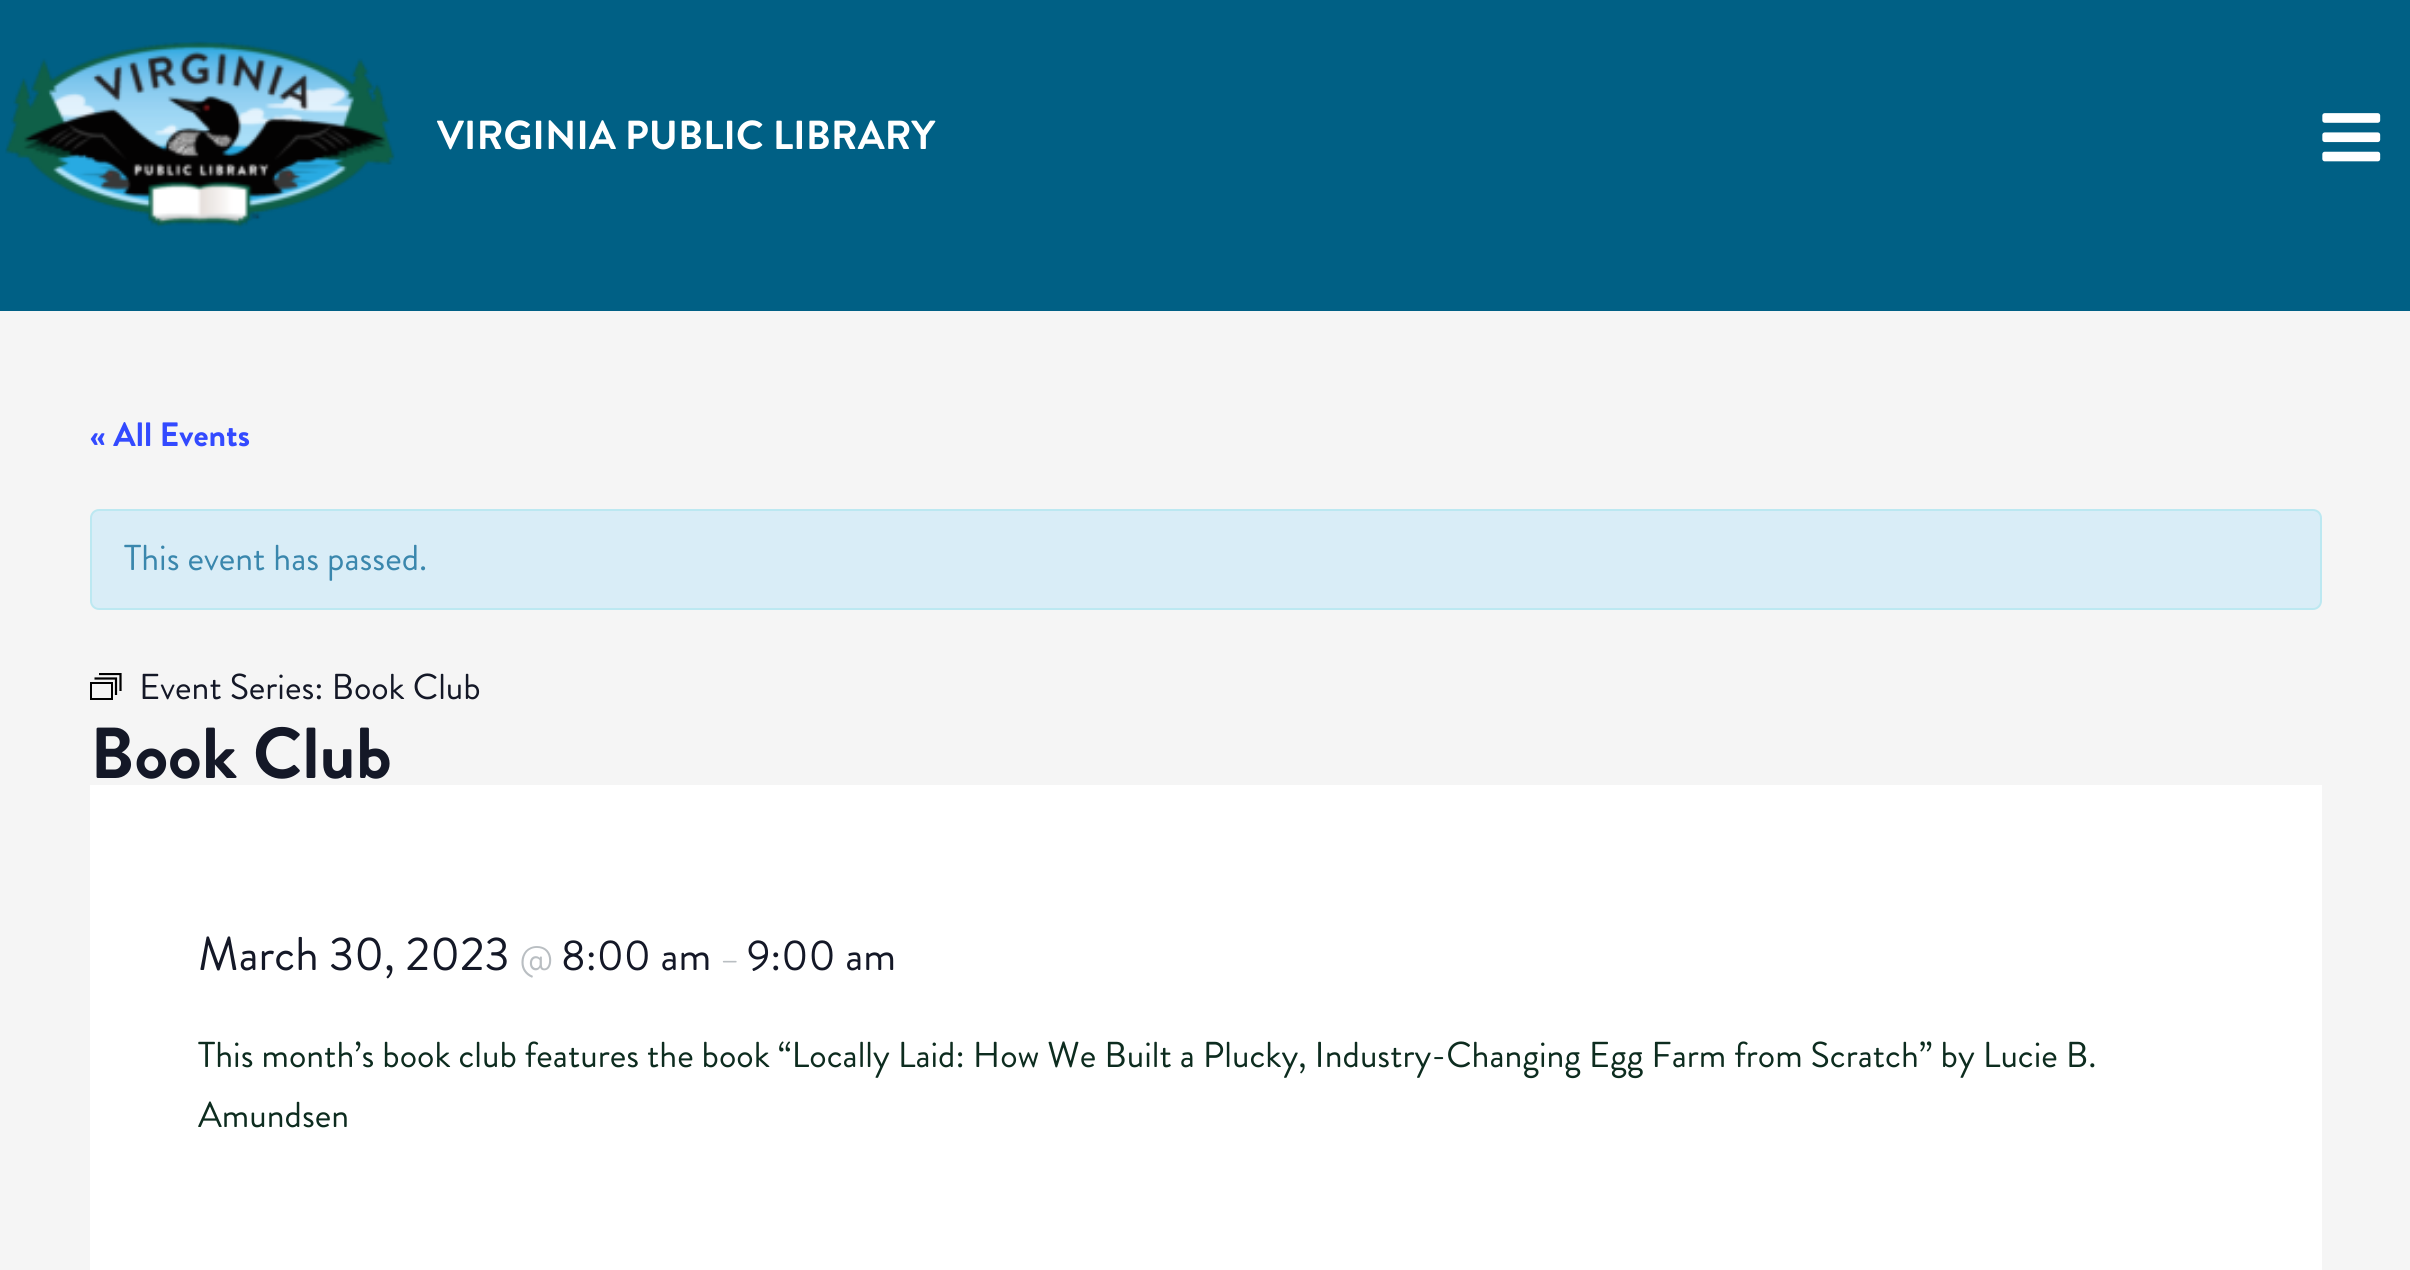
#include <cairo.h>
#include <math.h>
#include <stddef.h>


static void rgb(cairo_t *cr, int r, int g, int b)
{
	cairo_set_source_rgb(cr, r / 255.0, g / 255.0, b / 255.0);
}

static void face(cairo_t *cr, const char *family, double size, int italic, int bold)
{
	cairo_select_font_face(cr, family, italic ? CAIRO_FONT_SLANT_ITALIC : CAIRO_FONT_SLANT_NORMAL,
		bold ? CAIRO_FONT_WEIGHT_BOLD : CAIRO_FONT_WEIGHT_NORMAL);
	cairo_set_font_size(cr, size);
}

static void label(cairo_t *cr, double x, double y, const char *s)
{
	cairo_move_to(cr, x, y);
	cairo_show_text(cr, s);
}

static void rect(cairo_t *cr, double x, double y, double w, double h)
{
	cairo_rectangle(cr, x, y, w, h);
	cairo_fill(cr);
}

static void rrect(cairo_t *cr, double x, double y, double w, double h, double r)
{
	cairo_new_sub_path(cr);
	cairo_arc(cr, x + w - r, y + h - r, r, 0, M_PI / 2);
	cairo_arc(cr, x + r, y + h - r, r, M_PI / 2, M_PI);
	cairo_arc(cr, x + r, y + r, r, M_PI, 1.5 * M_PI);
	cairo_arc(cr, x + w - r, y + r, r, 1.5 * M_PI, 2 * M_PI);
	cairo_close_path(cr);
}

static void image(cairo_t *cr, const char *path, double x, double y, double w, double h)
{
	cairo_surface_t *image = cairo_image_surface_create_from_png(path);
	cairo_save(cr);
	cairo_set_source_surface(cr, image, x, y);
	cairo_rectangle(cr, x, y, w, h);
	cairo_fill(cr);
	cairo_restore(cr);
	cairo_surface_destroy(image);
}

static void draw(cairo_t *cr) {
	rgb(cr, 245, 245, 245);
	cairo_paint(cr);
	rgb(cr, 0, 96, 133);
	rect(cr, 0, 0, 2410, 311);
	image(cr, "image0.png", 5, 41, 390, 187);
	face(cr, "Brandon Grotesque", 40.5, 0, 1);
	rgb(cr, 255, 255, 255);
	label(cr, 437, 149, "VIRGINIA PUBLIC LIBRARY");
	image(cr, "image1.png", 2322, 113, 59, 49);
	face(cr, "Brandon Grotesque", 33.75, 0, 1);
	rgb(cr, 51, 74, 255);
	label(cr, 90, 446, "« All Events");
	rgb(cr, 217, 237, 247);
	rrect(cr, 91, 510, 2230, 99, 8);
	cairo_fill_preserve(cr);
	rgb(cr, 188, 232, 241);
	cairo_stroke(cr);
	face(cr, "Brandon Grotesque", 36, 0, 0);
	rgb(cr, 58, 135, 173);
	label(cr, 124, 570, "This event has passed.");
	cairo_rectangle(cr, 91, 683, 21, 16);
	rgb(cr, 0, 0, 0);
	cairo_stroke(cr);
	cairo_new_path(cr);
	cairo_move_to(cr, 94.5, 678.5);
	cairo_line_to(cr, 116, 678.5);
	cairo_line_to(cr, 116, 695);
	cairo_set_line_width(cr, 2.2);
	cairo_stroke(cr);
	cairo_save(cr);
	cairo_rectangle(cr, 90, 673, 32, 27);
	cairo_clip(cr);
	cairo_new_path(cr);
	cairo_move_to(cr, 99, 674);
	cairo_line_to(cr, 120.5, 674);
	cairo_line_to(cr, 120.5, 691);
	cairo_stroke(cr);
	cairo_restore(cr);
	rgb(cr, 20, 24, 39);
	label(cr, 139, 699, "Event Series: Book Club");
	face(cr, "Brandon Grotesque", 72, 0, 1);
	label(cr, 90, 778, "Book Club");
	rgb(cr, 255, 255, 255);
	rect(cr, 90, 785, 2232, 485);
	face(cr, "Brandon Grotesque", 47.25, 0, 0);
	rgb(cr, 20, 24, 39);
	label(cr, 198, 970, "March 30, 2023");
	face(cr, "Brandon Grotesque", 33.75, 0, 0);
	rgb(cr, 185, 190, 194);
	label(cr, 520, 970, "@");
	face(cr, "Brandon Grotesque", 43, 0, 0);
	rgb(cr, 20, 24, 39);
	label(cr, 561, 970, "8:00 am");
	face(cr, "Brandon Grotesque", 33.75, 0, 0);
	rgb(cr, 185, 190, 194);
	label(cr, 720, 970, "–");
	face(cr, "Brandon Grotesque", 43, 0, 0);
	rgb(cr, 20, 24, 39);
	label(cr, 747, 970, "9:00 am");
	face(cr, "Brandon Grotesque", 36, 0, 0);
	rgb(cr, 13, 44, 31);
	label(cr, 198, 1067, "This month’s book club features the book “Locally Laid: How We Built a Plucky, Industry-Changing Egg Farm from Scratch” by Lucie B.");
	label(cr, 198, 1127, "Amundsen");
}

int main(void) {
	cairo_surface_t *surface = cairo_image_surface_create(CAIRO_FORMAT_RGB24, 2410, 1270);
	cairo_t *cr = cairo_create(surface);
	cairo_font_options_t *options = cairo_font_options_create();
	cairo_font_options_set_hint_metrics(options, CAIRO_HINT_METRICS_OFF);
	cairo_font_options_set_hint_style(options, CAIRO_HINT_STYLE_NONE);
	cairo_set_font_options(cr, options);
	cairo_set_miter_limit(cr, 4);
	draw(cr);
	cairo_surface_write_to_png(surface, "render.png");
	cairo_font_options_destroy(options);
	cairo_destroy(cr);
	cairo_surface_destroy(surface);
	return 0;
}
